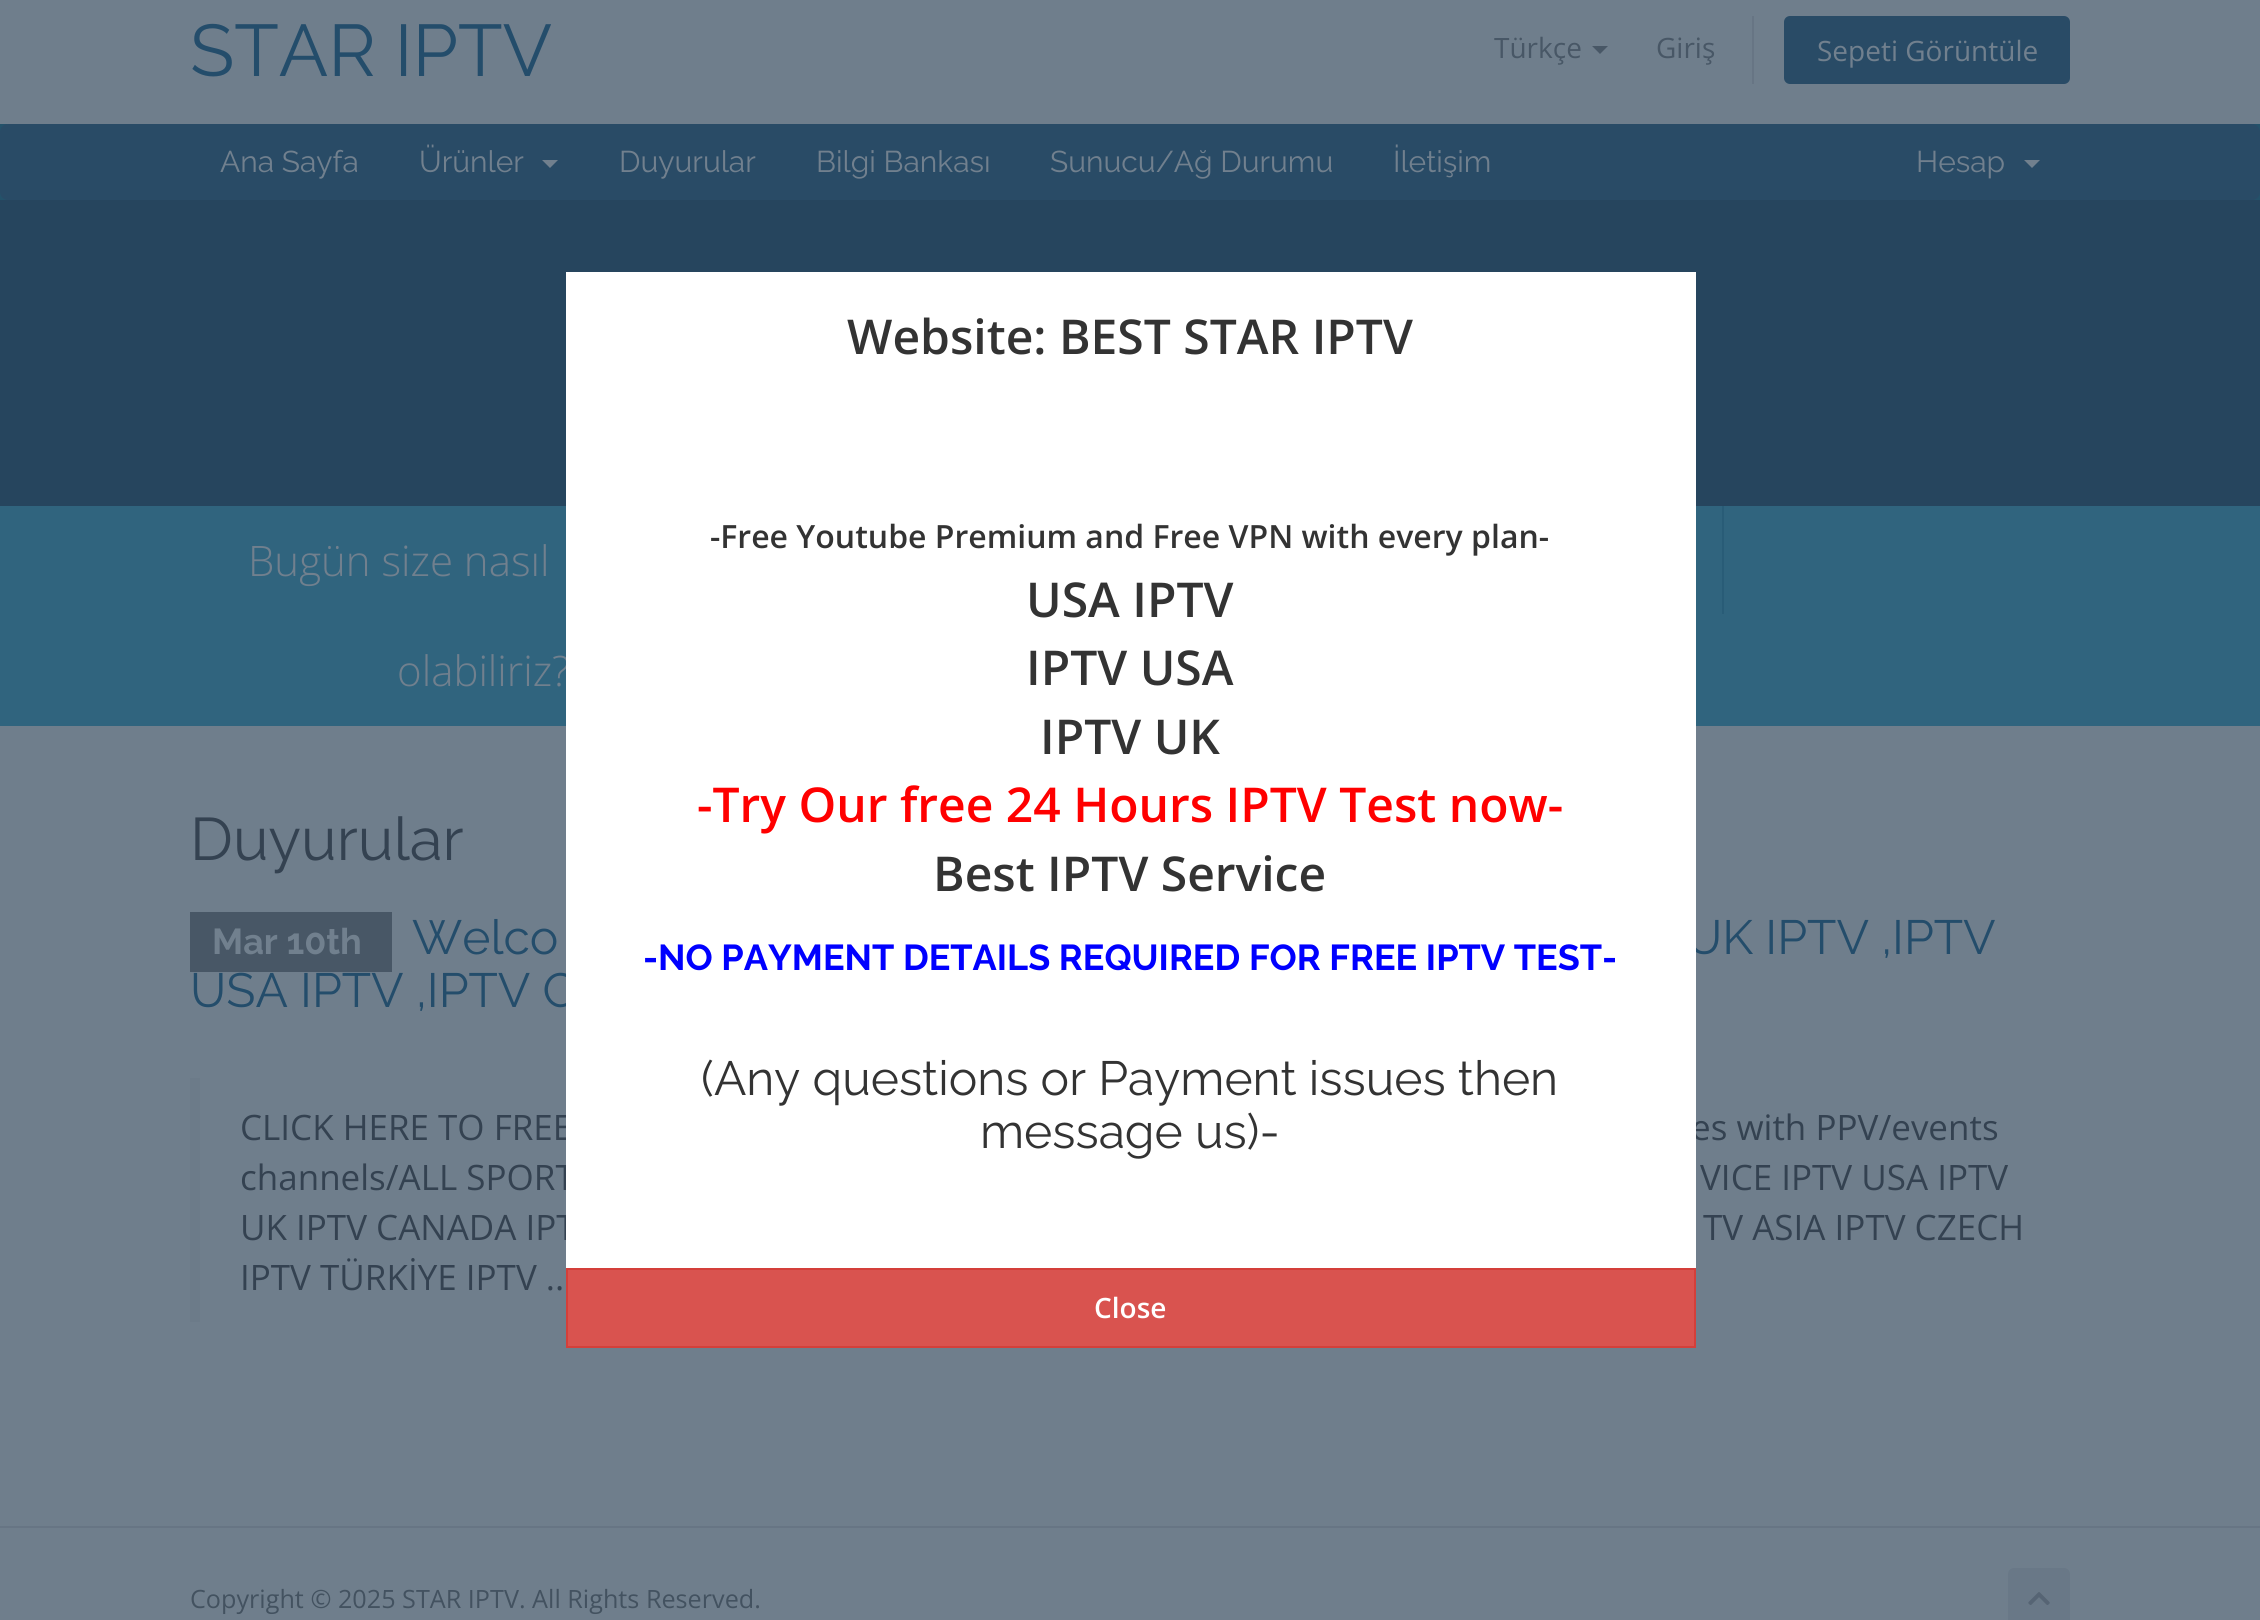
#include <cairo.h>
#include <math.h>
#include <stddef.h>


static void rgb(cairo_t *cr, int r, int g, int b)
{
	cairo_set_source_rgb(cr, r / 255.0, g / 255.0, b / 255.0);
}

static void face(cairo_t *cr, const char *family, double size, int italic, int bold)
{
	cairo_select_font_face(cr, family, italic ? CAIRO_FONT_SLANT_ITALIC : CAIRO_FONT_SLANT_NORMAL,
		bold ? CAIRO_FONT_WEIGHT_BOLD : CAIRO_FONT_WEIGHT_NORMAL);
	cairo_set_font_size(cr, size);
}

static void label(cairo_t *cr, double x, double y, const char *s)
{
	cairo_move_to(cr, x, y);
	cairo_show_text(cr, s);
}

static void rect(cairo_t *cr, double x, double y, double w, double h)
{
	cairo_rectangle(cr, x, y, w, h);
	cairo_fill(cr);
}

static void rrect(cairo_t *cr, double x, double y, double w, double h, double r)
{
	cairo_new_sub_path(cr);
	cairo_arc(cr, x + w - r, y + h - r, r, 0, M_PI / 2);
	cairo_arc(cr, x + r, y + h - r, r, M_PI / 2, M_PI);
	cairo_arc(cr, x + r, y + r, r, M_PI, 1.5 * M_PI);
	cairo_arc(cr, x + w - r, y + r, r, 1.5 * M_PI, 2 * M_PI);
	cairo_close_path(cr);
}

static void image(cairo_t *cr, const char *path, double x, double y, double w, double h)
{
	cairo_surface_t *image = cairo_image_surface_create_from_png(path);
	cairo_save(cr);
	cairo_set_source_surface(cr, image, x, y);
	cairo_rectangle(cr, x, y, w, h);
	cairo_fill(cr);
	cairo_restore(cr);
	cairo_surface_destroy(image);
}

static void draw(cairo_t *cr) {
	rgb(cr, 111, 126, 140);
	cairo_paint(cr);
	face(cr, "Raleway", 73, 0, 0);
	rgb(cr, 36, 77, 107);
	label(cr, 190, 76, "STAR IPTV");
	face(cr, "Open Sans", 28, 0, 0);
	rgb(cr, 72, 87, 102);
	label(cr, 1494, 58, "Türkçe");
	cairo_new_path(cr);
	cairo_move_to(cr, 1592, 46);
	cairo_line_to(cr, 1608, 46);
	cairo_line_to(cr, 1600, 54);
	cairo_close_path(cr);
	cairo_fill(cr);
	label(cr, 1656, 58, "Giriş");
	rgb(cr, 103, 117, 132);
	rect(cr, 1752, 16, 2, 68);
	rgb(cr, 41, 75, 102);
	rrect(cr, 1784, 16, 286, 68, 6);
	cairo_fill(cr);
	rgb(cr, 113, 128, 142);
	label(cr, 1817, 61, "Sepeti Görüntüle");
	rgb(cr, 36, 82, 106);
	rect(cr, 0, 124, 2260, 76);
	rgb(cr, 41, 75, 102);
	rrect(cr, 0, 124, 2260, 76, 8);
	cairo_fill(cr);
	face(cr, "Raleway", 30, 0, 0);
	rgb(cr, 113, 128, 142);
	label(cr, 220, 172, "Ana Sayfa");
	label(cr, 419, 172, "Ürünler");
	cairo_new_path(cr);
	cairo_move_to(cr, 542, 160);
	cairo_line_to(cr, 558, 160);
	cairo_line_to(cr, 550, 168);
	cairo_close_path(cr);
	cairo_fill(cr);
	label(cr, 619, 172, "Duyurular");
	label(cr, 816, 172, "Bilgi Bankası");
	label(cr, 1050, 172, "Sunucu/Ağ Durumu");
	label(cr, 1393, 172, "İletişim");
	label(cr, 1916, 172, "Hesap");
	cairo_new_path(cr);
	cairo_move_to(cr, 2024, 160);
	cairo_line_to(cr, 2040, 160);
	cairo_line_to(cr, 2032, 168);
	cairo_close_path(cr);
	cairo_fill(cr);
	rgb(cr, 38, 69, 94);
	rect(cr, 0, 200, 2260, 306);
	rgb(cr, 48, 100, 126);
	rect(cr, 0, 506, 2260, 220);
	face(cr, "Open Sans Light", 42, 0, 0);
	rgb(cr, 113, 128, 142);
	label(cr, 248, 576, "Bugün size nasıl");
	label(cr, 397, 686, "olabiliriz?");
	rgb(cr, 41, 92, 119);
	rect(cr, 1722, 506, 2, 108);
	face(cr, "Raleway", 48, 0, 0);
	rgb(cr, 36, 77, 107);
	label(cr, 1686, 954, "UK IPTV ,IPTV");
	label(cr, 190, 1007, "USA IPTV ,IPTV C");
	face(cr, "Open Sans", 35, 0, 0);
	rgb(cr, 52, 66, 81);
	label(cr, 240, 1140, "CLICK HERE TO FREE");
	label(cr, 1691, 1140, "es with PPV/events");
	label(cr, 240, 1190, "channels/ALL SPORT");
	label(cr, 240, 1240, "UK IPTV CANADA IPT");
	rgb(cr, 255, 255, 255);
	rect(cr, 566, 272, 1130, 996);
	face(cr, "Open Sans SemiBold", 48, 0, 0);
	rgb(cr, 51, 51, 51);
	label(cr, 847, 354, "Website: BEST STAR IPTV");
	face(cr, "Open Sans SemiBold", 32, 0, 0);
	label(cr, 710, 548, "-Free Youtube Premium and Free VPN with every plan-");
	face(cr, "Open Sans SemiBold", 48, 0, 0);
	label(cr, 1026, 617, "USA IPTV");
	label(cr, 1026, 685, "IPTV USA");
	label(cr, 1040, 754, "IPTV UK");
	rgb(cr, 255, 0, 0);
	label(cr, 697, 822, "-Try Our free 24 Hours IPTV Test now-");
	rgb(cr, 51, 51, 51);
	label(cr, 933, 891, "Best IPTV Service");
	face(cr, "Raleway", 36, 0, 1);
	rgb(cr, 0, 0, 255);
	label(cr, 643, 970, "-NO PAYMENT DETAILS REQUIRED FOR FREE IPTV TEST-");
	face(cr, "Raleway", 48, 0, 0);
	rgb(cr, 51, 51, 51);
	label(cr, 701, 1095, "(Any questions or Payment issues then");
	label(cr, 980, 1148, "message us)-");
	rgb(cr, 217, 83, 79);
	cairo_rectangle(cr, 567, 1269, 1128, 78);
	cairo_fill_preserve(cr);
	rgb(cr, 212, 63, 58);
	cairo_stroke(cr);
	face(cr, "Open Sans SemiBold", 28, 0, 0);
	rgb(cr, 255, 255, 255);
	label(cr, 1094, 1318, "Close");
	face(cr, "Raleway", 60, 0, 0);
	rgb(cr, 52, 66, 81);
	label(cr, 190, 860, "Duyurular");
	rgb(cr, 72, 87, 102);
	rect(cr, 190, 912, 202, 60);
	face(cr, "Raleway", 36, 0, 1);
	rgb(cr, 113, 128, 142);
	label(cr, 212, 954, "Mar 10th");
	face(cr, "Raleway", 48, 0, 0);
	rgb(cr, 36, 77, 107);
	label(cr, 412, 954, "Welco");
	rgb(cr, 108, 123, 137);
	rect(cr, 190, 1078, 10, 244);
	face(cr, "Open Sans", 35, 0, 0);
	rgb(cr, 52, 66, 81);
	label(cr, 1700, 1190, "VICE IPTV USA IPTV");
	label(cr, 1703, 1240, "TV ASIA IPTV CZECH");
	label(cr, 240, 1290, "IPTV TÜRKİYE IPTV ..");
	rgb(cr, 103, 117, 132);
	rect(cr, 0, 1526, 2260, 2);
	face(cr, "Open Sans", 25.2, 0, 0);
	rgb(cr, 67, 82, 96);
	label(cr, 190, 1608, "Copyright © 2025 STAR IPTV. All Rights Reserved.");
	rgb(cr, 105, 120, 135);
	rrect(cr, 2008, 1568, 62, 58, 6);
	cairo_fill(cr);
	image(cr, "image0.png", 2028, 1592, 22, 13);
}

int main(void) {
	cairo_surface_t *surface = cairo_image_surface_create(CAIRO_FORMAT_RGB24, 2260, 1620);
	cairo_t *cr = cairo_create(surface);
	cairo_font_options_t *options = cairo_font_options_create();
	cairo_font_options_set_hint_metrics(options, CAIRO_HINT_METRICS_OFF);
	cairo_font_options_set_hint_style(options, CAIRO_HINT_STYLE_NONE);
	cairo_set_font_options(cr, options);
	cairo_set_miter_limit(cr, 4);
	draw(cr);
	cairo_surface_write_to_png(surface, "render.png");
	cairo_font_options_destroy(options);
	cairo_destroy(cr);
	cairo_surface_destroy(surface);
	return 0;
}
